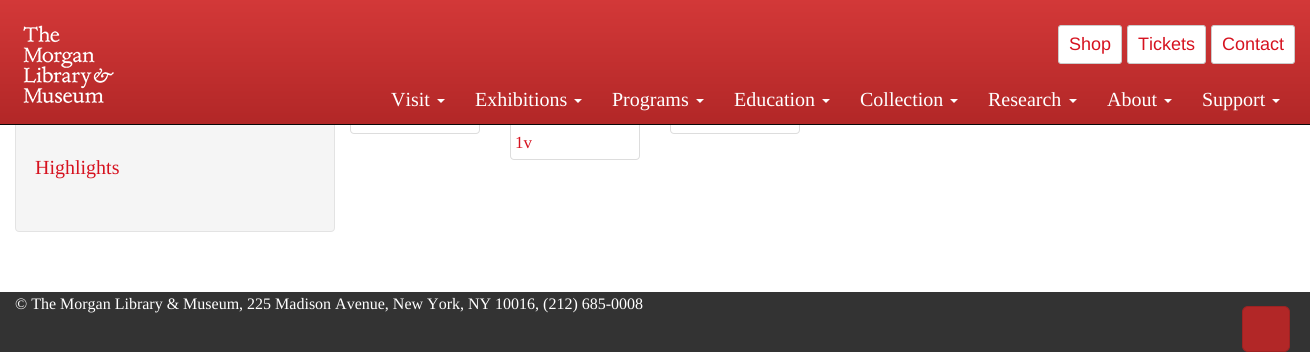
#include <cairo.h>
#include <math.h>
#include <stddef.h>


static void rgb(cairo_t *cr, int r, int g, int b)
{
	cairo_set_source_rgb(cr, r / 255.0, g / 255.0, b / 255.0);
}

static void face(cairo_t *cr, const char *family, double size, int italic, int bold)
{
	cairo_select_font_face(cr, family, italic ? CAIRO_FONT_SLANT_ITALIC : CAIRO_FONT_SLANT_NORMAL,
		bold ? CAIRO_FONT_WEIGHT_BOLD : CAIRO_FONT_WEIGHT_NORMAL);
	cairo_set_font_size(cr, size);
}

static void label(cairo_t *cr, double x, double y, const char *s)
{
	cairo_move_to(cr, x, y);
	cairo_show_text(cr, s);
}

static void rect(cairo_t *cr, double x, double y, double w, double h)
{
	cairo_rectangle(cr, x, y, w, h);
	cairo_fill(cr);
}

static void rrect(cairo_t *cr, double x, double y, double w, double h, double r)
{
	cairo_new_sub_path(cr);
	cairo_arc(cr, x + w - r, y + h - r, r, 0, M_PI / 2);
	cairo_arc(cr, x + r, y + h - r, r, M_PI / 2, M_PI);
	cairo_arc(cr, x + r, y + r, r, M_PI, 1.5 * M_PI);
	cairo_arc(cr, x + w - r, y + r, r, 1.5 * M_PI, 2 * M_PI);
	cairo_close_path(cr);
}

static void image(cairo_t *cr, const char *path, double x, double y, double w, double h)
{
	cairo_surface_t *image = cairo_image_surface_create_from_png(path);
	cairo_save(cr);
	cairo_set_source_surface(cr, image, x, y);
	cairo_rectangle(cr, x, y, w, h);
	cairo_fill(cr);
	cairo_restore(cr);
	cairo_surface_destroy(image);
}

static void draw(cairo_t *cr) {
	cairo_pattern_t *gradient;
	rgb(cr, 255, 255, 255);
	cairo_paint(cr);
	rrect(cr, 350.5, -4.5, 129, 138, 3.5);
	rgb(cr, 221, 221, 221);
	cairo_set_line_width(cr, 1);
	cairo_stroke(cr);
	rrect(cr, 670.5, -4.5, 129, 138, 3.5);
	cairo_stroke(cr);
	rrect(cr, 510.5, -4.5, 129, 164, 3.5);
	cairo_stroke(cr);
	rgb(cr, 245, 245, 245);
	rrect(cr, 15.5, -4.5, 319, 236, 3.5);
	cairo_fill_preserve(cr);
	rgb(cr, 227, 227, 227);
	cairo_stroke(cr);
	gradient = cairo_pattern_create_linear(655, 0, 655, 124);
	cairo_pattern_add_color_stop_rgba(gradient, 0, 0.827, 0.22, 0.22, 1);
	cairo_pattern_add_color_stop_rgba(gradient, 1, 0.698, 0.153, 0.153, 1);
	cairo_set_source(cr, gradient);
	cairo_pattern_destroy(gradient);
	rect(cr, 0, 0, 1310, 124);
	rgb(cr, 8, 8, 8);
	rect(cr, 0, 124, 1310, 1);
	image(cr, "image0.png", 23, 25, 91, 78);
	rgb(cr, 255, 255, 255);
	rrect(cr, 1058.5, 25.5, 63, 38, 2.5);
	cairo_fill_preserve(cr);
	rgb(cr, 204, 204, 204);
	cairo_stroke(cr);
	face(cr, "Liberation Sans", 18, 0, 0);
	rgb(cr, 214, 18, 31);
	label(cr, 1069, 50, "Shop");
	rgb(cr, 255, 255, 255);
	rrect(cr, 1127.5, 25.5, 78, 38, 2.5);
	cairo_fill_preserve(cr);
	rgb(cr, 204, 204, 204);
	cairo_stroke(cr);
	rgb(cr, 214, 18, 31);
	label(cr, 1138, 50, "Tickets");
	rgb(cr, 255, 255, 255);
	rrect(cr, 1211.5, 25.5, 83, 38, 2.5);
	cairo_fill_preserve(cr);
	rgb(cr, 204, 204, 204);
	cairo_stroke(cr);
	rgb(cr, 214, 18, 31);
	label(cr, 1222, 50, "Contact");
	face(cr, "Liberation Serif", 20, 0, 0);
	rgb(cr, 255, 255, 255);
	label(cr, 391, 106, "Visit");
	cairo_new_path(cr);
	cairo_move_to(cr, 437, 99);
	cairo_line_to(cr, 445, 99);
	cairo_line_to(cr, 441, 103);
	cairo_close_path(cr);
	cairo_fill(cr);
	label(cr, 475, 106, "Exhibitions");
	cairo_new_path(cr);
	cairo_move_to(cr, 574, 99);
	cairo_line_to(cr, 582, 99);
	cairo_line_to(cr, 578, 103);
	cairo_close_path(cr);
	cairo_fill(cr);
	label(cr, 612, 106, "Programs");
	cairo_new_path(cr);
	cairo_move_to(cr, 696, 99);
	cairo_line_to(cr, 704, 99);
	cairo_line_to(cr, 700, 103);
	cairo_close_path(cr);
	cairo_fill(cr);
	label(cr, 734, 106, "Education");
	cairo_new_path(cr);
	cairo_move_to(cr, 822, 99);
	cairo_line_to(cr, 830, 99);
	cairo_line_to(cr, 826, 103);
	cairo_close_path(cr);
	cairo_fill(cr);
	label(cr, 860, 106, "Collection");
	cairo_new_path(cr);
	cairo_move_to(cr, 950, 99);
	cairo_line_to(cr, 958, 99);
	cairo_line_to(cr, 954, 103);
	cairo_close_path(cr);
	cairo_fill(cr);
	label(cr, 988, 106, "Research");
	cairo_new_path(cr);
	cairo_move_to(cr, 1069, 99);
	cairo_line_to(cr, 1077, 99);
	cairo_line_to(cr, 1073, 103);
	cairo_close_path(cr);
	cairo_fill(cr);
	label(cr, 1107, 106, "About");
	cairo_new_path(cr);
	cairo_move_to(cr, 1164, 99);
	cairo_line_to(cr, 1172, 99);
	cairo_line_to(cr, 1168, 103);
	cairo_close_path(cr);
	cairo_fill(cr);
	label(cr, 1202, 106, "Support");
	cairo_new_path(cr);
	cairo_move_to(cr, 1272, 99);
	cairo_line_to(cr, 1280, 99);
	cairo_line_to(cr, 1276, 103);
	cairo_close_path(cr);
	cairo_fill(cr);
	face(cr, "Liberation Serif", 17, 0, 0);
	rgb(cr, 214, 18, 31);
	label(cr, 515, 148, "1v");
	face(cr, "Liberation Serif", 20, 0, 0);
	label(cr, 35, 174, "Highlights");
	rgb(cr, 51, 51, 51);
	rect(cr, 0, 292, 1310, 60);
	face(cr, "Liberation Serif", 16, 0, 0);
	rgb(cr, 255, 255, 255);
	label(cr, 15, 309, "© The Morgan Library & Museum, 225 Madison Avenue, New York, NY 10016, (212) 685-0008");
	rgb(cr, 178, 39, 39);
	rrect(cr, 1242.5, 306.5, 47, 45, 5.5);
	cairo_fill_preserve(cr);
	rgb(cr, 157, 34, 34);
	cairo_stroke(cr);
}

int main(void) {
	cairo_surface_t *surface = cairo_image_surface_create(CAIRO_FORMAT_RGB24, 1310, 352);
	cairo_t *cr = cairo_create(surface);
	cairo_font_options_t *options = cairo_font_options_create();
	cairo_font_options_set_hint_metrics(options, CAIRO_HINT_METRICS_OFF);
	cairo_font_options_set_hint_style(options, CAIRO_HINT_STYLE_NONE);
	cairo_set_font_options(cr, options);
	cairo_set_miter_limit(cr, 4);
	draw(cr);
	cairo_surface_write_to_png(surface, "render.png");
	cairo_font_options_destroy(options);
	cairo_destroy(cr);
	cairo_surface_destroy(surface);
	return 0;
}
